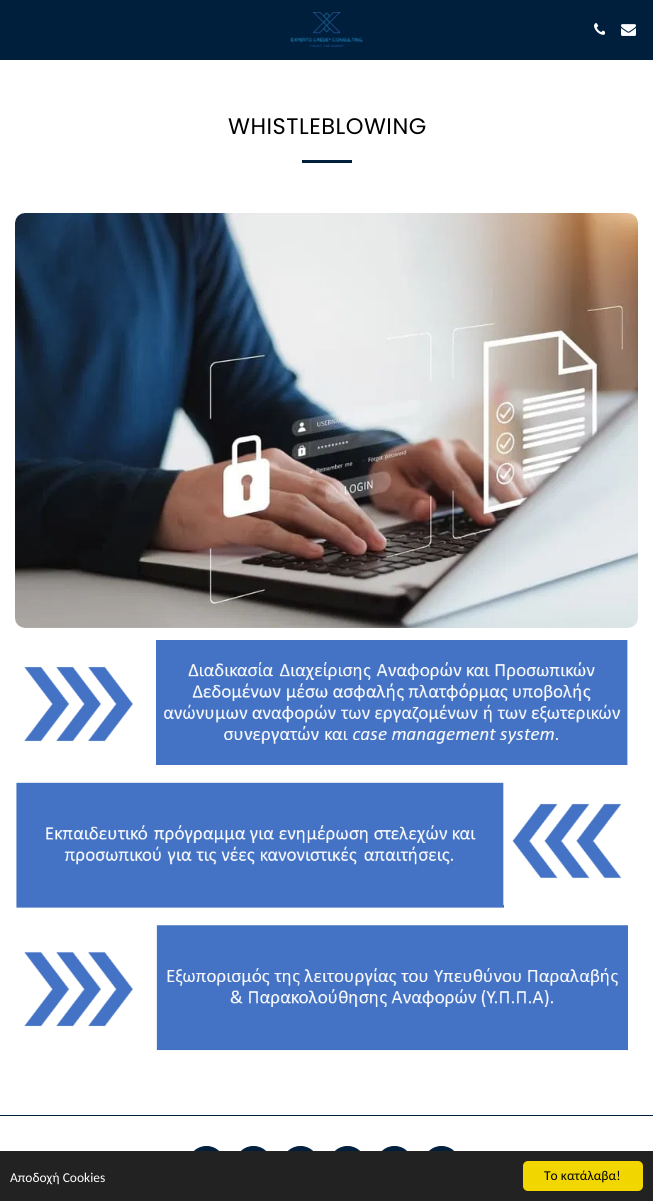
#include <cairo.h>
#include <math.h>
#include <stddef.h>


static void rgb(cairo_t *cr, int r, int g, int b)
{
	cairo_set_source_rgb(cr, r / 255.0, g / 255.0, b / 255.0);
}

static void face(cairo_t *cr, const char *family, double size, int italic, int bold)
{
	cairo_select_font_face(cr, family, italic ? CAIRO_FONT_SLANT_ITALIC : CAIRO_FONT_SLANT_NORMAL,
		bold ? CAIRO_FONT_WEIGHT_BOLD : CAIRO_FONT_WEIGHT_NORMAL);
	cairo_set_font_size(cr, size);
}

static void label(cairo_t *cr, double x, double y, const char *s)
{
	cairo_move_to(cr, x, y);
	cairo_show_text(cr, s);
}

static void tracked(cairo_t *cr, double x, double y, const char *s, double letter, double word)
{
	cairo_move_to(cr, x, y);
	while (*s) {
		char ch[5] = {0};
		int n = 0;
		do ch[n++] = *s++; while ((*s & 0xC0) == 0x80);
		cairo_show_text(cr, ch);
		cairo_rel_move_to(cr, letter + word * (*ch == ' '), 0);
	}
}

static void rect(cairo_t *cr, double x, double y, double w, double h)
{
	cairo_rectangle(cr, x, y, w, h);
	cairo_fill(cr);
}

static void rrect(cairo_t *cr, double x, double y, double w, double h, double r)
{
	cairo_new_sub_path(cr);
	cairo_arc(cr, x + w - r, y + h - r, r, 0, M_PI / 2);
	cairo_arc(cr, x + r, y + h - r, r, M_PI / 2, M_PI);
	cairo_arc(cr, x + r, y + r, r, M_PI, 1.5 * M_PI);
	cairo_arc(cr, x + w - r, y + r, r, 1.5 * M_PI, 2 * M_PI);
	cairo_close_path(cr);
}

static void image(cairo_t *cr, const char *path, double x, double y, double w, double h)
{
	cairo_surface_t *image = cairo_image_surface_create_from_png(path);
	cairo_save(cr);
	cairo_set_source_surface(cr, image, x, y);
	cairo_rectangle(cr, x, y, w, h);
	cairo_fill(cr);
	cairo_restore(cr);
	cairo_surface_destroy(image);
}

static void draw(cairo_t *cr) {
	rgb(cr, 0, 31, 61);
	cairo_paint(cr);
	image(cr, "image0.png", 290, 12, 73, 35);
	image(cr, "image1.png", 594, 23, 11, 12);
	image(cr, "image2.png", 621, 24, 15, 12);
	rgb(cr, 255, 255, 255);
	rect(cr, 0, 60, 653, 1055);
	face(cr, "Poppins", 22.5, 0, 0);
	rgb(cr, 0, 0, 0);
	tracked(cr, 228, 134, "WHISTLEBLOWING", 0.5, 0);
	rgb(cr, 0, 31, 61);
	rect(cr, 302, 160, 50, 3);
	image(cr, "image3.png", 15, 213, 623, 415);
	image(cr, "image4.png", 16, 640, 612, 411);
	rgb(cr, 255, 255, 255);
	rect(cr, 0, 1116, 653, 35);
	rgb(cr, 0, 31, 61);
	cairo_arc(cr, 206.5, 1164.5, 18, 0, 2 * M_PI);
	cairo_fill_preserve(cr);
	cairo_set_line_width(cr, 1);
	cairo_stroke(cr);
	cairo_arc(cr, 253.5, 1164.5, 18, 0, 2 * M_PI);
	cairo_fill_preserve(cr);
	cairo_stroke(cr);
	cairo_arc(cr, 300.5, 1164.5, 18, 0, 2 * M_PI);
	cairo_fill_preserve(cr);
	cairo_stroke(cr);
	cairo_arc(cr, 347.5, 1164.5, 18, 0, 2 * M_PI);
	cairo_fill_preserve(cr);
	cairo_stroke(cr);
	cairo_arc(cr, 394.5, 1164.5, 18, 0, 2 * M_PI);
	cairo_fill_preserve(cr);
	cairo_stroke(cr);
	cairo_arc(cr, 441.5, 1164.5, 18, 0, 2 * M_PI);
	cairo_fill_preserve(cr);
	cairo_stroke(cr);
	rgb(cr, 34, 34, 34);
	rect(cr, 0, 1151, 653, 50);
	face(cr, "Carlito", 13.5, 0, 0);
	rgb(cr, 255, 255, 255);
	label(cr, 10, 1182, "Αποδοχή Cookies");
	rgb(cr, 241, 214, 0);
	rrect(cr, 523, 1161, 120, 30, 5);
	cairo_fill(cr);
	rgb(cr, 0, 0, 0);
	label(cr, 544, 1180, "Το κατάλαβα!");
}

int main(void) {
	cairo_surface_t *surface = cairo_image_surface_create(CAIRO_FORMAT_RGB24, 653, 1201);
	cairo_t *cr = cairo_create(surface);
	cairo_font_options_t *options = cairo_font_options_create();
	cairo_font_options_set_hint_metrics(options, CAIRO_HINT_METRICS_OFF);
	cairo_font_options_set_hint_style(options, CAIRO_HINT_STYLE_NONE);
	cairo_set_font_options(cr, options);
	cairo_set_miter_limit(cr, 4);
	draw(cr);
	cairo_surface_write_to_png(surface, "render.png");
	cairo_font_options_destroy(options);
	cairo_destroy(cr);
	cairo_surface_destroy(surface);
	return 0;
}
